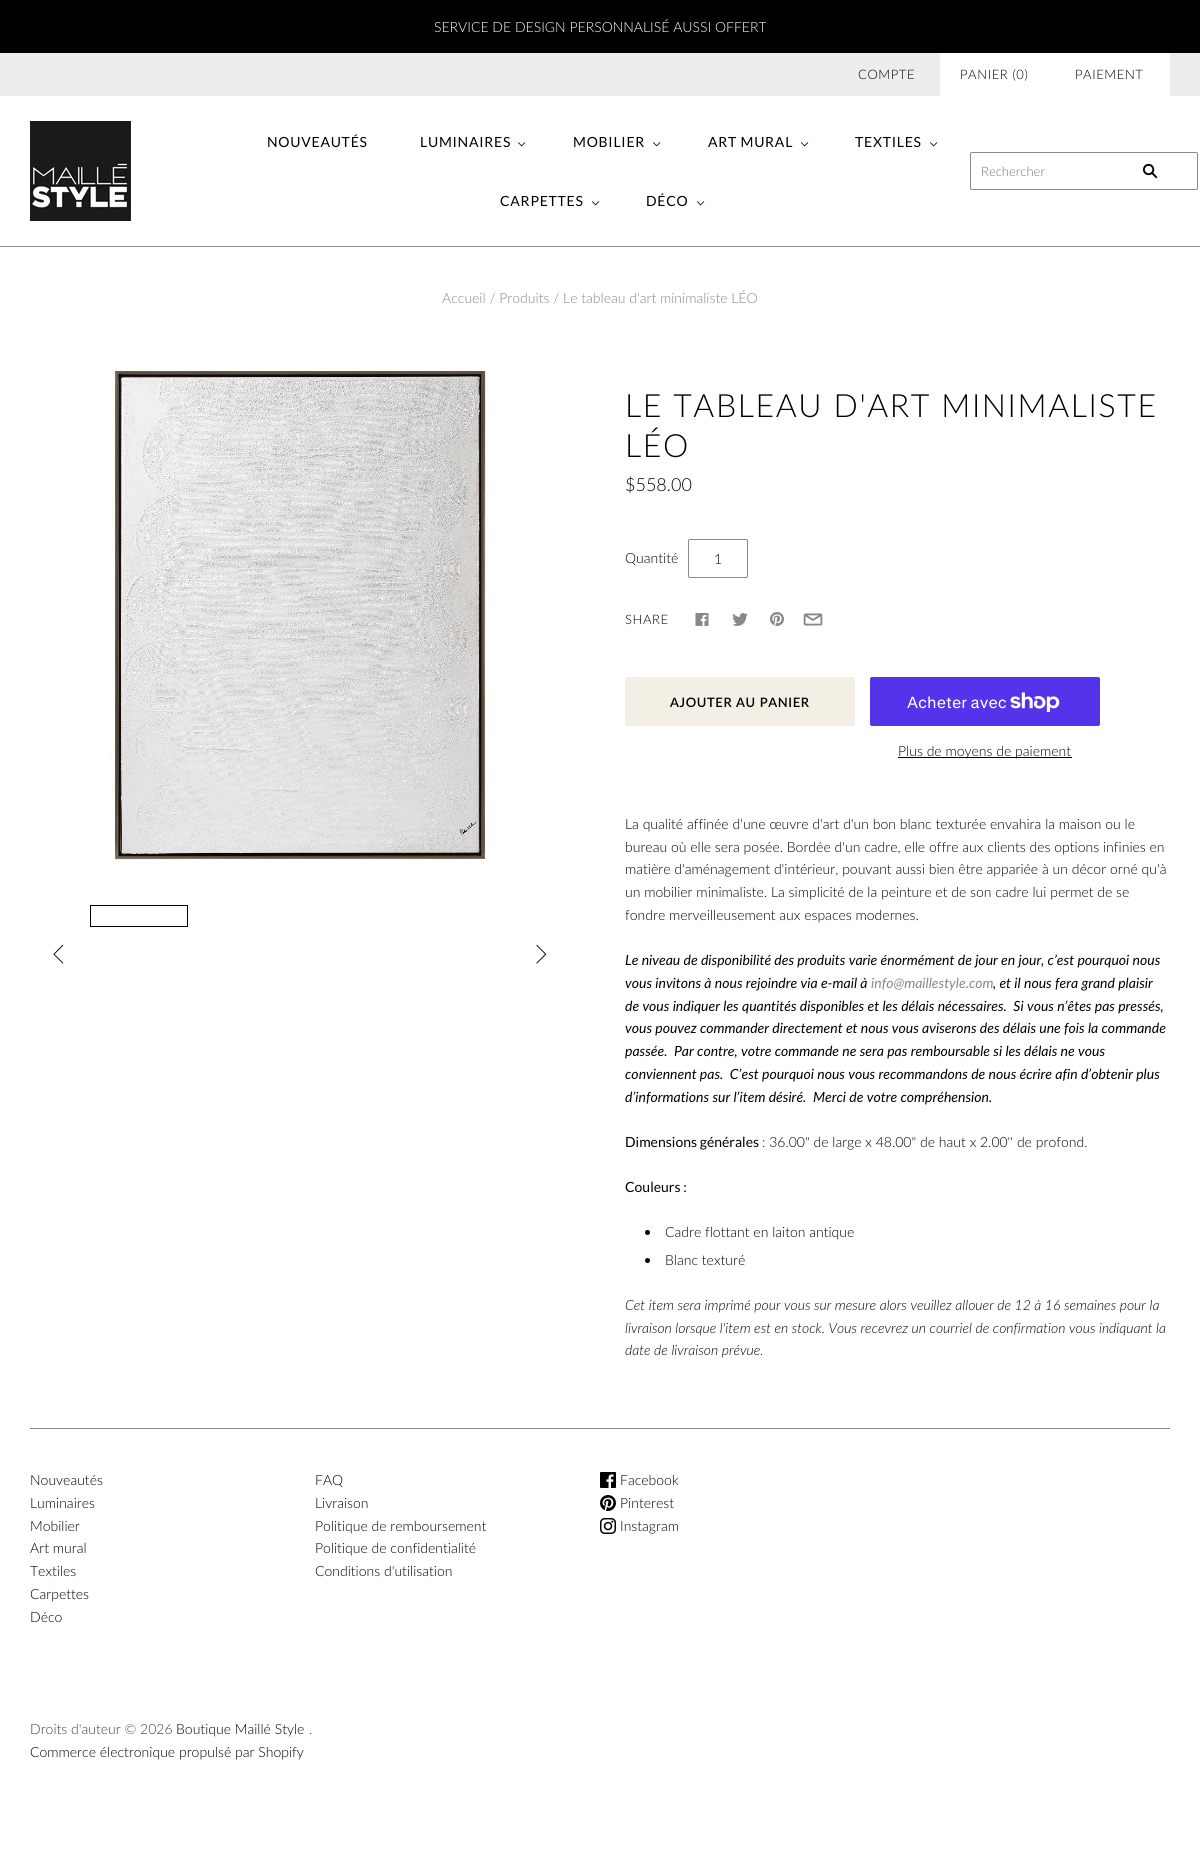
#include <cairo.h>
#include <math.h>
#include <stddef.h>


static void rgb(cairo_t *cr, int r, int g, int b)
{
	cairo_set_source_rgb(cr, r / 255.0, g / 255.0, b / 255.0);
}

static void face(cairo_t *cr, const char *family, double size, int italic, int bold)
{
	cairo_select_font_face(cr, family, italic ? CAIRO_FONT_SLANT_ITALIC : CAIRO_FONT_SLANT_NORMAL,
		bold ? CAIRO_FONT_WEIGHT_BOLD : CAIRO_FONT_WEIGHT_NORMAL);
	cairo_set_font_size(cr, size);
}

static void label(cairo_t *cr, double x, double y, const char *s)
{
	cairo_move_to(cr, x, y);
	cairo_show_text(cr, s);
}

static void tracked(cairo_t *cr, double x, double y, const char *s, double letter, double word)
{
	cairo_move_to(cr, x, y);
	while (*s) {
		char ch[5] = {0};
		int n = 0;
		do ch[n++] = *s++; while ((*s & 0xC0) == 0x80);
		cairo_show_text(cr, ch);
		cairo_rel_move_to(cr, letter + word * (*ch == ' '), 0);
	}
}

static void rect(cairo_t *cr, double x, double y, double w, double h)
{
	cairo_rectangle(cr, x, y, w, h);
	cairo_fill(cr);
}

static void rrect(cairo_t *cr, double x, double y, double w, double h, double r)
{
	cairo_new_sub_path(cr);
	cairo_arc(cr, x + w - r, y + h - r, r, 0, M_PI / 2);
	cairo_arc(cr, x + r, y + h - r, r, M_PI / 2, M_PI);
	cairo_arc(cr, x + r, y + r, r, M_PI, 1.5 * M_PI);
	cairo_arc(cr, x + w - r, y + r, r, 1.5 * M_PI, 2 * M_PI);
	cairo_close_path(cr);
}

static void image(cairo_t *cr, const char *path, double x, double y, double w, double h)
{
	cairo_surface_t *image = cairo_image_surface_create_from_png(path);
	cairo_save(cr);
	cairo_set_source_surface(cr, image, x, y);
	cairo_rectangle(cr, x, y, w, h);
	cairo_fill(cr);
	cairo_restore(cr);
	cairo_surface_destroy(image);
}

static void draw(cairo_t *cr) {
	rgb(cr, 255, 255, 255);
	cairo_paint(cr);
	rgb(cr, 0, 0, 0);
	rect(cr, 0, 0, 1200, 53);
	face(cr, "Lato Light", 14, 0, 0);
	rgb(cr, 255, 255, 255);
	label(cr, 434, 32, "SERVICE DE DESIGN PERSONNALISÉ AUSSI OFFERT");
	rgb(cr, 137, 135, 136);
	rect(cr, 0, 246, 1200, 1);
	rgb(cr, 237, 237, 237);
	rect(cr, 0, 53, 1200, 43);
	face(cr, "Lato Light", 13, 0, 0);
	rgb(cr, 0, 0, 0);
	tracked(cr, 858, 79, "COMPTE", 0.6, 0);
	rgb(cr, 255, 255, 255);
	rect(cr, 940, 53, 230, 43);
	rgb(cr, 0, 0, 0);
	tracked(cr, 960, 79, "PANIER (0)", 0.6, 0);
	tracked(cr, 1075, 79, "PAIEMENT", 0.6, 0);
	image(cr, "image0.png", 30, 121, 101, 100);
	face(cr, "Lato", 14, 0, 0);
	tracked(cr, 267, 147, "NOUVEAUTÉS", 0.75, 0);
	tracked(cr, 420, 147, "LUMINAIRES", 0.75, 0);
	image(cr, "image1.png", 518, 142, 8, 5);
	tracked(cr, 573, 147, "MOBILIER", 0.75, 0);
	image(cr, "image1.png", 653, 142, 8, 5);
	tracked(cr, 708, 147, "ART MURAL", 0.75, 0);
	image(cr, "image1.png", 801, 142, 8, 5);
	tracked(cr, 855, 147, "TEXTILES", 0.75, 0);
	image(cr, "image1.png", 930, 142, 8, 5);
	tracked(cr, 500, 206, "CARPETTES", 0.75, 0);
	image(cr, "image1.png", 592, 201, 8, 5);
	tracked(cr, 646, 206, "DÉCO", 0.75, 0);
	image(cr, "image1.png", 697, 201, 8, 5);
	rrect(cr, 970.5, 152.5, 227, 37, 1.5);
	rgb(cr, 137, 135, 136);
	cairo_set_line_width(cr, 1);
	cairo_stroke(cr);
	face(cr, "Lato Light", 13, 0, 0);
	rgb(cr, 117, 117, 117);
	label(cr, 981, 176, "Rechercher");
	image(cr, "image2.png", 1142, 163, 16, 16);
	face(cr, "Lato Light", 14, 0, 0);
	rgb(cr, 137, 135, 136);
	label(cr, 442, 303, "Accueil / Produits / Le tableau d'art minimaliste LÉO");
	image(cr, "image3.png", 108, 370, 380, 493);
	cairo_rectangle(cr, 90.5, 905.5, 97, 21);
	rgb(cr, 0, 0, 0);
	cairo_stroke(cr);
	image(cr, "image4.png", 53, 944, 11, 20);
	image(cr, "image5.png", 536, 944, 11, 20);
	face(cr, "Lato Light", 32, 0, 0);
	tracked(cr, 625, 417, "LE TABLEAU D'ART MINIMALISTE", 1.6, 0);
	tracked(cr, 625, 457, "LÉO", 1.6, 0);
	face(cr, "Lato Light", 18, 0, 0);
	label(cr, 625, 491, "$558.00");
	face(cr, "Lato Light", 14, 0, 0);
	label(cr, 625, 563, "Quantité");
	rrect(cr, 688.5, 539.5, 59, 38, 1.5);
	rgb(cr, 137, 135, 136);
	cairo_stroke(cr);
	rgb(cr, 0, 0, 0);
	label(cr, 714, 564, "1");
	face(cr, "Lato Light", 13, 0, 0);
	tracked(cr, 625, 624, "SHARE", 0.6, 0);
	image(cr, "image6.png", 695, 613, 14, 13);
	image(cr, "image7.png", 732, 613, 16, 13);
	image(cr, "image8.png", 770, 612, 14, 14);
	image(cr, "image9.png", 803, 613, 20, 13);
	rgb(cr, 243, 239, 229);
	rrect(cr, 625, 677, 230, 49, 2);
	cairo_fill(cr);
	face(cr, "Lato SemiBold", 13, 0, 0);
	rgb(cr, 0, 0, 0);
	tracked(cr, 670, 707, "AJOUTER AU PANIER", 0.6, 0);
	rgb(cr, 84, 51, 235);
	rrect(cr, 870, 677, 230, 49, 2);
	cairo_fill(cr);
	face(cr, "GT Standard", 16, 0, 0);
	rgb(cr, 255, 255, 255);
	label(cr, 907, 708, "Acheter avec");
	image(cr, "image10.png", 1010, 692, 50, 20);
	rgb(cr, 0, 0, 0);
	rect(cr, 898, 757, 174, 1);
	face(cr, "Lato Light", 14, 0, 0);
	label(cr, 898, 756, "Plus de moyens de paiement");
	label(cr, 625, 829, "La qualité affinée d'une œuvre d'art d'un bon blanc texturée envahira la maison ou le");
	label(cr, 625, 852, "bureau où elle sera posée. Bordée d'un cadre, elle offre aux clients des options infinies en");
	label(cr, 625, 874, "matière d'aménagement d'intérieur, pouvant aussi bien être appariée à un décor orné qu'à");
	label(cr, 625, 897, "un mobilier minimaliste. La simplicité de la peinture et de son cadre lui permet de se");
	label(cr, 625, 920, "fondre merveilleusement aux espaces modernes.");
	face(cr, "Lato", 14, 1, 0);
	label(cr, 625, 965, "Le niveau de disponibilité des produits varie énormément de jour en jour, c’est pourquoi nous");
	label(cr, 625, 988, "vous invitons à nous rejoindre via e-mail à");
	rgb(cr, 137, 135, 136);
	label(cr, 871, 988, "info@maillestyle.com");
	rgb(cr, 0, 0, 0);
	label(cr, 993, 988, ", et il nous fera grand plaisir");
	label(cr, 625, 1011, "de vous indiquer les quantités disponibles et les délais nécessaires.  Si vous n’êtes pas pressés,");
	label(cr, 625, 1033, "vous pouvez commander directement et nous vous aviserons des délais une fois la commande");
	label(cr, 625, 1056, "passée.  Par contre, votre commande ne sera pas remboursable si les délais ne vous");
	label(cr, 625, 1079, "conviennent pas.  C’est pourquoi nous vous recommandons de nous écrire afin d’obtenir plus");
	label(cr, 625, 1102, "d’informations sur l’item désiré.  Merci de votre compréhension.");
	face(cr, "Lato", 14, 0, 0);
	label(cr, 625, 1147, "Dimensions générales");
	face(cr, "Lato Light", 14, 0, 0);
	label(cr, 762, 1147, ": 36.00\" de large x 48.00\" de haut x 2.00'' de profond.");
	face(cr, "Lato", 14, 0, 0);
	label(cr, 625, 1192, "Couleurs :");
	cairo_new_path(cr);
	cairo_arc(cr, 647.5, 1232.5, 2.5, 0, 2 * M_PI);
	cairo_fill(cr);
	face(cr, "Lato Light", 14, 0, 0);
	label(cr, 665, 1237, "Cadre flottant en laiton antique");
	cairo_new_path(cr);
	cairo_arc(cr, 647.5, 1260.5, 2.5, 0, 2 * M_PI);
	cairo_fill(cr);
	label(cr, 665, 1265, "Blanc texturé");
	face(cr, "Lato Light", 14, 1, 0);
	label(cr, 625, 1310, "Cet item sera imprimé pour vous sur mesure alors veuillez allouer de 12 à 16 semaines pour la");
	label(cr, 625, 1333, "livraison lorsque l'item est en stock. Vous recevrez un courriel de confirmation vous indiquant la");
	label(cr, 625, 1355, "date de livraison prévue.");
	rgb(cr, 137, 135, 136);
	rect(cr, 30, 1428, 1140, 1);
	face(cr, "Lato Light", 14, 0, 0);
	rgb(cr, 0, 0, 0);
	label(cr, 30, 1485, "Nouveautés");
	label(cr, 30, 1508, "Luminaires");
	label(cr, 30, 1531, "Mobilier");
	label(cr, 30, 1553, "Art mural");
	label(cr, 30, 1576, "Textiles");
	label(cr, 30, 1599, "Carpettes");
	label(cr, 30, 1622, "Déco");
	label(cr, 315, 1485, "FAQ");
	label(cr, 315, 1508, "Livraison");
	label(cr, 315, 1531, "Politique de remboursement");
	label(cr, 315, 1553, "Politique de confidentialité");
	label(cr, 315, 1576, "Conditions d'utilisation");
	image(cr, "image11.png", 600, 1472, 16, 16);
	label(cr, 620, 1485, "Facebook");
	image(cr, "image12.png", 600, 1495, 16, 16);
	label(cr, 620, 1508, "Pinterest");
	image(cr, "image13.png", 600, 1518, 16, 16);
	label(cr, 620, 1531, "Instagram");
	rgb(cr, 64, 64, 64);
	label(cr, 30, 1734, "Droits d'auteur © 2026");
	rgb(cr, 0, 0, 0);
	label(cr, 176, 1734, "Boutique Maillé Style");
	rgb(cr, 64, 64, 64);
	label(cr, 309, 1734, ".");
	rgb(cr, 0, 0, 0);
	label(cr, 30, 1757, "Commerce électronique propulsé par Shopify");
}

int main(void) {
	cairo_surface_t *surface = cairo_image_surface_create(CAIRO_FORMAT_RGB24, 1200, 1867);
	cairo_t *cr = cairo_create(surface);
	cairo_font_options_t *options = cairo_font_options_create();
	cairo_font_options_set_hint_metrics(options, CAIRO_HINT_METRICS_OFF);
	cairo_font_options_set_hint_style(options, CAIRO_HINT_STYLE_NONE);
	cairo_set_font_options(cr, options);
	cairo_set_miter_limit(cr, 4);
	draw(cr);
	cairo_surface_write_to_png(surface, "render.png");
	cairo_font_options_destroy(options);
	cairo_destroy(cr);
	cairo_surface_destroy(surface);
	return 0;
}
